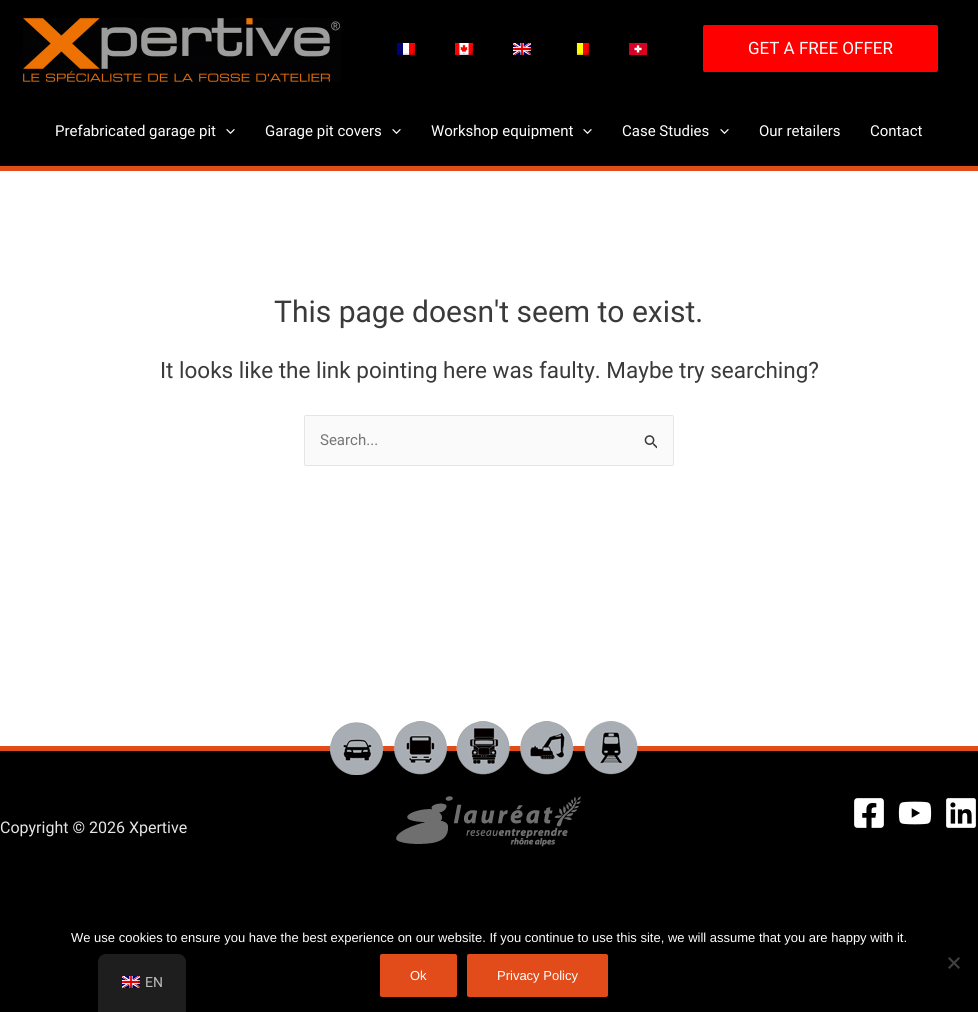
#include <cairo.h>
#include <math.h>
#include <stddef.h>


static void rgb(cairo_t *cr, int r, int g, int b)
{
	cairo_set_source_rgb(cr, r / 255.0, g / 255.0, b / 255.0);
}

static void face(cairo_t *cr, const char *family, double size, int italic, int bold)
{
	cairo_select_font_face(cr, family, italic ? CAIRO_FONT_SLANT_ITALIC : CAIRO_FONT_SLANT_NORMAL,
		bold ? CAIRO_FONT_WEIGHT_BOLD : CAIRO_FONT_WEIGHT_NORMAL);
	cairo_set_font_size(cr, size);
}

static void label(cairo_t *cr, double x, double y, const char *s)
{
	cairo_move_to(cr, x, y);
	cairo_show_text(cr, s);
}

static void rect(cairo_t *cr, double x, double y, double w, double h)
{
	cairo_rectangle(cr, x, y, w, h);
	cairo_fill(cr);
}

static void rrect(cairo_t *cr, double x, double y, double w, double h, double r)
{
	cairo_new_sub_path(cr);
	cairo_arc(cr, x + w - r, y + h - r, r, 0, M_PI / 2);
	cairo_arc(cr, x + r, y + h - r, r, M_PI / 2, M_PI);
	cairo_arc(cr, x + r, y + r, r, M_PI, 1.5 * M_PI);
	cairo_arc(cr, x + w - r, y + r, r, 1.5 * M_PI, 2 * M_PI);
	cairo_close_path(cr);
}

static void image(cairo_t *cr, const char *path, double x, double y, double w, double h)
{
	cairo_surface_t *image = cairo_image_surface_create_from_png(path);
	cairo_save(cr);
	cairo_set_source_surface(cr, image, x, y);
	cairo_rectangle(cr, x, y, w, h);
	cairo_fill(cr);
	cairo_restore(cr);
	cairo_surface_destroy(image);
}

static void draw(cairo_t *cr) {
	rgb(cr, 255, 255, 255);
	cairo_paint(cr);
	rgb(cr, 0, 0, 0);
	rect(cr, 0, 0, 978, 166);
	image(cr, "image0.png", 23, 18, 318, 64);
	image(cr, "image1.png", 397, 43, 18, 12);
	image(cr, "image2.png", 455, 43, 18, 12);
	image(cr, "image3.png", 513, 43, 18, 12);
	image(cr, "image4.png", 576, 43, 13, 12);
	image(cr, "image5.png", 629, 43, 18, 12);
	rgb(cr, 254, 0, 0);
	rrect(cr, 703, 25, 235, 47, 2);
	cairo_fill(cr);
	face(cr, "Roboto", 17, 0, 0);
	rgb(cr, 255, 255, 255);
	label(cr, 748, 54, "GET A FREE OFFER");
	rgb(cr, 226, 76, 26);
	rect(cr, 0, 166, 978, 5);
	face(cr, "Roboto", 15, 0, 0);
	rgb(cr, 255, 255, 255);
	label(cr, 55, 136, "Prefabricated garage pit");
	image(cr, "image6.png", 226, 129, 9, 5);
	label(cr, 265, 136, "Garage pit covers");
	image(cr, "image6.png", 392, 129, 9, 5);
	label(cr, 431, 136, "Workshop equipment");
	image(cr, "image6.png", 583, 129, 9, 5);
	label(cr, 622, 136, "Case Studies");
	image(cr, "image6.png", 720, 129, 9, 5);
	label(cr, 759, 136, "Our retailers");
	label(cr, 870, 136, "Contact");
	face(cr, "Roboto", 30, 0, 0);
	rgb(cr, 58, 58, 58);
	label(cr, 274, 322, "This page doesn't seem to exist.");
	face(cr, "Roboto", 22.5, 0, 0);
	label(cr, 160, 378, "It looks like the link pointing here was faulty. Maybe try searching?");
	rgb(cr, 250, 250, 250);
	rrect(cr, 304.5, 415.5, 369, 50, 1.5);
	cairo_fill_preserve(cr);
	rgb(cr, 229, 229, 229);
	cairo_set_line_width(cr, 1);
	cairo_stroke(cr);
	face(cr, "Roboto", 15, 0, 0);
	rgb(cr, 117, 117, 117);
	label(cr, 320, 445, "Search...");
	image(cr, "image7.png", 644, 435, 13, 14);
	rgb(cr, 0, 0, 0);
	rect(cr, 0, 751, 978, 261);
	rgb(cr, 226, 76, 26);
	rect(cr, 0, 746, 978, 5);
	image(cr, "image8.png", 330, 721, 308, 54);
	face(cr, "Roboto", 16, 0, 0);
	rgb(cr, 229, 229, 229);
	label(cr, 0, 833, "Copyright © 2026 Xpertive");
	image(cr, "image9.png", 396, 796, 185, 51);
	image(cr, "image10.png", 854, 798, 30, 30);
	image(cr, "image11.png", 898, 801, 34, 24);
	image(cr, "image12.png", 946, 798, 30, 30);
	face(cr, "Liberation Sans", 13, 0, 0);
	rgb(cr, 255, 255, 255);
	label(cr, 71, 942, "We use cookies to ensure you have the best experience on our website. If you continue to use this site, we will assume that you are happy with it.");
	rgb(cr, 64, 64, 64);
	cairo_new_path(cr);
	cairo_move_to(cr, 958.5, 957);
	cairo_line_to(cr, 960, 958.5);
	cairo_line_to(cr, 949.5, 969);
	cairo_line_to(cr, 948, 967.5);
	cairo_close_path(cr);
	cairo_fill(cr);
	cairo_new_path(cr);
	cairo_move_to(cr, 948, 958.5);
	cairo_line_to(cr, 949.5, 957);
	cairo_line_to(cr, 960, 967.5);
	cairo_line_to(cr, 958.5, 969);
	cairo_close_path(cr);
	cairo_fill(cr);
	rgb(cr, 226, 76, 27);
	rrect(cr, 380, 954, 77, 43, 2);
	cairo_fill(cr);
	rgb(cr, 255, 255, 255);
	label(cr, 410, 980, "Ok");
	rgb(cr, 226, 76, 27);
	rrect(cr, 467, 954, 141, 43, 2);
	cairo_fill(cr);
	rgb(cr, 255, 255, 255);
	label(cr, 497, 980, "Privacy Policy");
	rgb(cr, 30, 30, 30);
	cairo_new_path(cr);
	cairo_move_to(cr, 106, 954);
	cairo_line_to(cr, 178, 954);
	cairo_curve_to(cr, 182.5, 954, 186, 957.5, 186, 962);
	cairo_line_to(cr, 186, 1012);
	cairo_line_to(cr, 98, 1012);
	cairo_line_to(cr, 98, 962);
	cairo_curve_to(cr, 98, 957.5, 101.5, 954, 106, 954);
	cairo_close_path(cr);
	cairo_fill(cr);
	image(cr, "image3.png", 122, 976, 18, 12);
	face(cr, "Roboto", 14, 0, 0);
	rgb(cr, 189, 189, 189);
	label(cr, 145, 987, "EN");
}

int main(void) {
	cairo_surface_t *surface = cairo_image_surface_create(CAIRO_FORMAT_RGB24, 978, 1012);
	cairo_t *cr = cairo_create(surface);
	cairo_font_options_t *options = cairo_font_options_create();
	cairo_font_options_set_hint_metrics(options, CAIRO_HINT_METRICS_OFF);
	cairo_font_options_set_hint_style(options, CAIRO_HINT_STYLE_NONE);
	cairo_set_font_options(cr, options);
	cairo_set_miter_limit(cr, 4);
	draw(cr);
	cairo_surface_write_to_png(surface, "render.png");
	cairo_font_options_destroy(options);
	cairo_destroy(cr);
	cairo_surface_destroy(surface);
	return 0;
}
